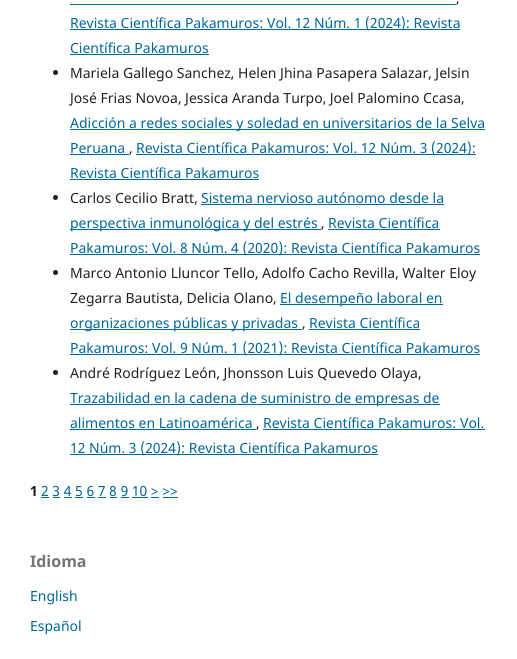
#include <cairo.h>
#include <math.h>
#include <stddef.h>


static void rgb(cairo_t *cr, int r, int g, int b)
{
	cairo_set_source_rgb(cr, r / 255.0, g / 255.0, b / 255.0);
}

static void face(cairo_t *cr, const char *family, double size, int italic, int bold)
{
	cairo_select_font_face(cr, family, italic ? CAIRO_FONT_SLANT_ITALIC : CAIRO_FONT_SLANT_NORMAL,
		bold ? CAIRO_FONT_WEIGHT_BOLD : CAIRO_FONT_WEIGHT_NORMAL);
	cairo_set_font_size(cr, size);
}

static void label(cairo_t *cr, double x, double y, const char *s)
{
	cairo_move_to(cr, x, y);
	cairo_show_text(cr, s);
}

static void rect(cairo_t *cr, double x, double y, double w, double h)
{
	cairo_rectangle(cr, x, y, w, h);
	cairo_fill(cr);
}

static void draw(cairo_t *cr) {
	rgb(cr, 255, 255, 255);
	cairo_paint(cr);
	rgb(cr, 0, 103, 152);
	rect(cr, 70, 4, 386, 1);
	face(cr, "Noto Sans", 14, 0, 0);
	rgb(cr, 33, 33, 33);
	label(cr, 456, 3, ",");
	rgb(cr, 0, 103, 152);
	rect(cr, 70, 29, 390, 1);
	label(cr, 70, 28, "Revista Científica Pakamuros: Vol. 12 Núm. 1 (2024): Revista");
	label(cr, 70, 53, "Científica Pakamuros");
	rect(cr, 70, 54, 139, 1);
	rgb(cr, 33, 33, 33);
	cairo_new_path(cr);
	cairo_arc(cr, 55.5, 72.5, 2.5, 0, 2 * M_PI);
	cairo_fill(cr);
	label(cr, 70, 78, "Mariela Gallego Sanchez, Helen Jhina Pasapera Salazar, Jelsin");
	label(cr, 70, 103, "José Frias Novoa, Jessica Aranda Turpo, Joel Palomino Ccasa,");
	rgb(cr, 0, 103, 152);
	rect(cr, 70, 129, 415, 1);
	label(cr, 70, 128, "Adicción a redes sociales y soledad en universitarios de la Selva");
	label(cr, 70, 153, "Peruana");
	rect(cr, 70, 154, 59, 1);
	rgb(cr, 33, 33, 33);
	label(cr, 129, 153, ",");
	rgb(cr, 0, 103, 152);
	rect(cr, 136, 154, 340, 1);
	label(cr, 136, 153, "Revista Científica Pakamuros: Vol. 12 Núm. 3 (2024):");
	label(cr, 70, 178, "Revista Científica Pakamuros");
	rect(cr, 70, 179, 189, 1);
	rgb(cr, 33, 33, 33);
	cairo_new_path(cr);
	cairo_arc(cr, 55.5, 197.5, 2.5, 0, 2 * M_PI);
	cairo_fill(cr);
	label(cr, 70, 203, "Carlos Cecilio Bratt,");
	rgb(cr, 0, 103, 152);
	label(cr, 201, 203, "Sistema nervioso autónomo desde la");
	rect(cr, 201, 204, 243, 1);
	rect(cr, 70, 229, 251, 1);
	label(cr, 70, 228, "perspectiva inmunológica y del estrés");
	rgb(cr, 33, 33, 33);
	label(cr, 321, 228, ",");
	rgb(cr, 0, 103, 152);
	label(cr, 328, 228, "Revista Científica");
	rect(cr, 328, 229, 112, 1);
	rect(cr, 70, 254, 410, 1);
	label(cr, 70, 253, "Pakamuros: Vol. 8 Núm. 4 (2020): Revista Científica Pakamuros");
	rgb(cr, 33, 33, 33);
	cairo_new_path(cr);
	cairo_arc(cr, 55.5, 272.5, 2.5, 0, 2 * M_PI);
	cairo_fill(cr);
	label(cr, 70, 278, "Marco Antonio Lluncor Tello, Adolfo Cacho Revilla, Walter Eloy");
	label(cr, 70, 303, "Zegarra Bautista, Delicia Olano,");
	rgb(cr, 0, 103, 152);
	rect(cr, 280, 304, 163, 1);
	label(cr, 280, 303, "El desempeño laboral en");
	rect(cr, 70, 329, 232, 1);
	label(cr, 70, 328, "organizaciones públicas y privadas");
	rgb(cr, 33, 33, 33);
	label(cr, 302, 328, ",");
	rgb(cr, 0, 103, 152);
	label(cr, 309, 328, "Revista Científica");
	rect(cr, 309, 329, 111, 1);
	rect(cr, 70, 354, 410, 1);
	label(cr, 70, 353, "Pakamuros: Vol. 9 Núm. 1 (2021): Revista Científica Pakamuros");
	rgb(cr, 33, 33, 33);
	cairo_new_path(cr);
	cairo_arc(cr, 55.5, 372.5, 2.5, 0, 2 * M_PI);
	cairo_fill(cr);
	label(cr, 70, 378, "André Rodríguez León, Jhonsson Luis Quevedo Olaya,");
	rgb(cr, 0, 103, 152);
	rect(cr, 70, 404, 370, 1);
	label(cr, 70, 403, "Trazabilidad en la cadena de suministro de empresas de");
	label(cr, 70, 428, "alimentos en Latinoamérica");
	rect(cr, 70, 429, 186, 1);
	rgb(cr, 33, 33, 33);
	label(cr, 256, 428, ",");
	rgb(cr, 0, 103, 152);
	label(cr, 263, 428, "Revista Científica Pakamuros: Vol.");
	rect(cr, 263, 429, 222, 1);
	rect(cr, 70, 454, 308, 1);
	label(cr, 70, 453, "12 Núm. 3 (2024): Revista Científica Pakamuros");
	face(cr, "Noto Sans", 14, 0, 1);
	rgb(cr, 33, 33, 33);
	label(cr, 30, 496, "1");
	face(cr, "Noto Sans", 14, 0, 0);
	rgb(cr, 0, 103, 152);
	label(cr, 41, 496, "2 3 4 5 6 7 8 9 10 > >>");
	rect(cr, 41, 497, 8, 1);
	rect(cr, 53, 497, 7, 1);
	rect(cr, 64, 497, 8, 1);
	rect(cr, 75, 497, 8, 1);
	rect(cr, 87, 497, 8, 1);
	rect(cr, 98, 497, 8, 1);
	rect(cr, 110, 497, 7, 1);
	rect(cr, 121, 497, 8, 1);
	rect(cr, 132, 497, 16, 1);
	rect(cr, 151, 497, 8, 1);
	rect(cr, 163, 497, 15, 1);
	face(cr, "Noto Sans", 16, 0, 1);
	rgb(cr, 117, 117, 117);
	label(cr, 30, 567, "Idioma");
	face(cr, "Noto Sans", 14, 0, 0);
	rgb(cr, 0, 103, 152);
	label(cr, 30, 601, "English");
	label(cr, 30, 631, "Español");
}

int main(void) {
	cairo_surface_t *surface = cairo_image_surface_create(CAIRO_FORMAT_RGB24, 517, 659);
	cairo_t *cr = cairo_create(surface);
	cairo_font_options_t *options = cairo_font_options_create();
	cairo_font_options_set_hint_metrics(options, CAIRO_HINT_METRICS_OFF);
	cairo_font_options_set_hint_style(options, CAIRO_HINT_STYLE_NONE);
	cairo_set_font_options(cr, options);
	cairo_set_miter_limit(cr, 4);
	draw(cr);
	cairo_surface_write_to_png(surface, "render.png");
	cairo_font_options_destroy(options);
	cairo_destroy(cr);
	cairo_surface_destroy(surface);
	return 0;
}
